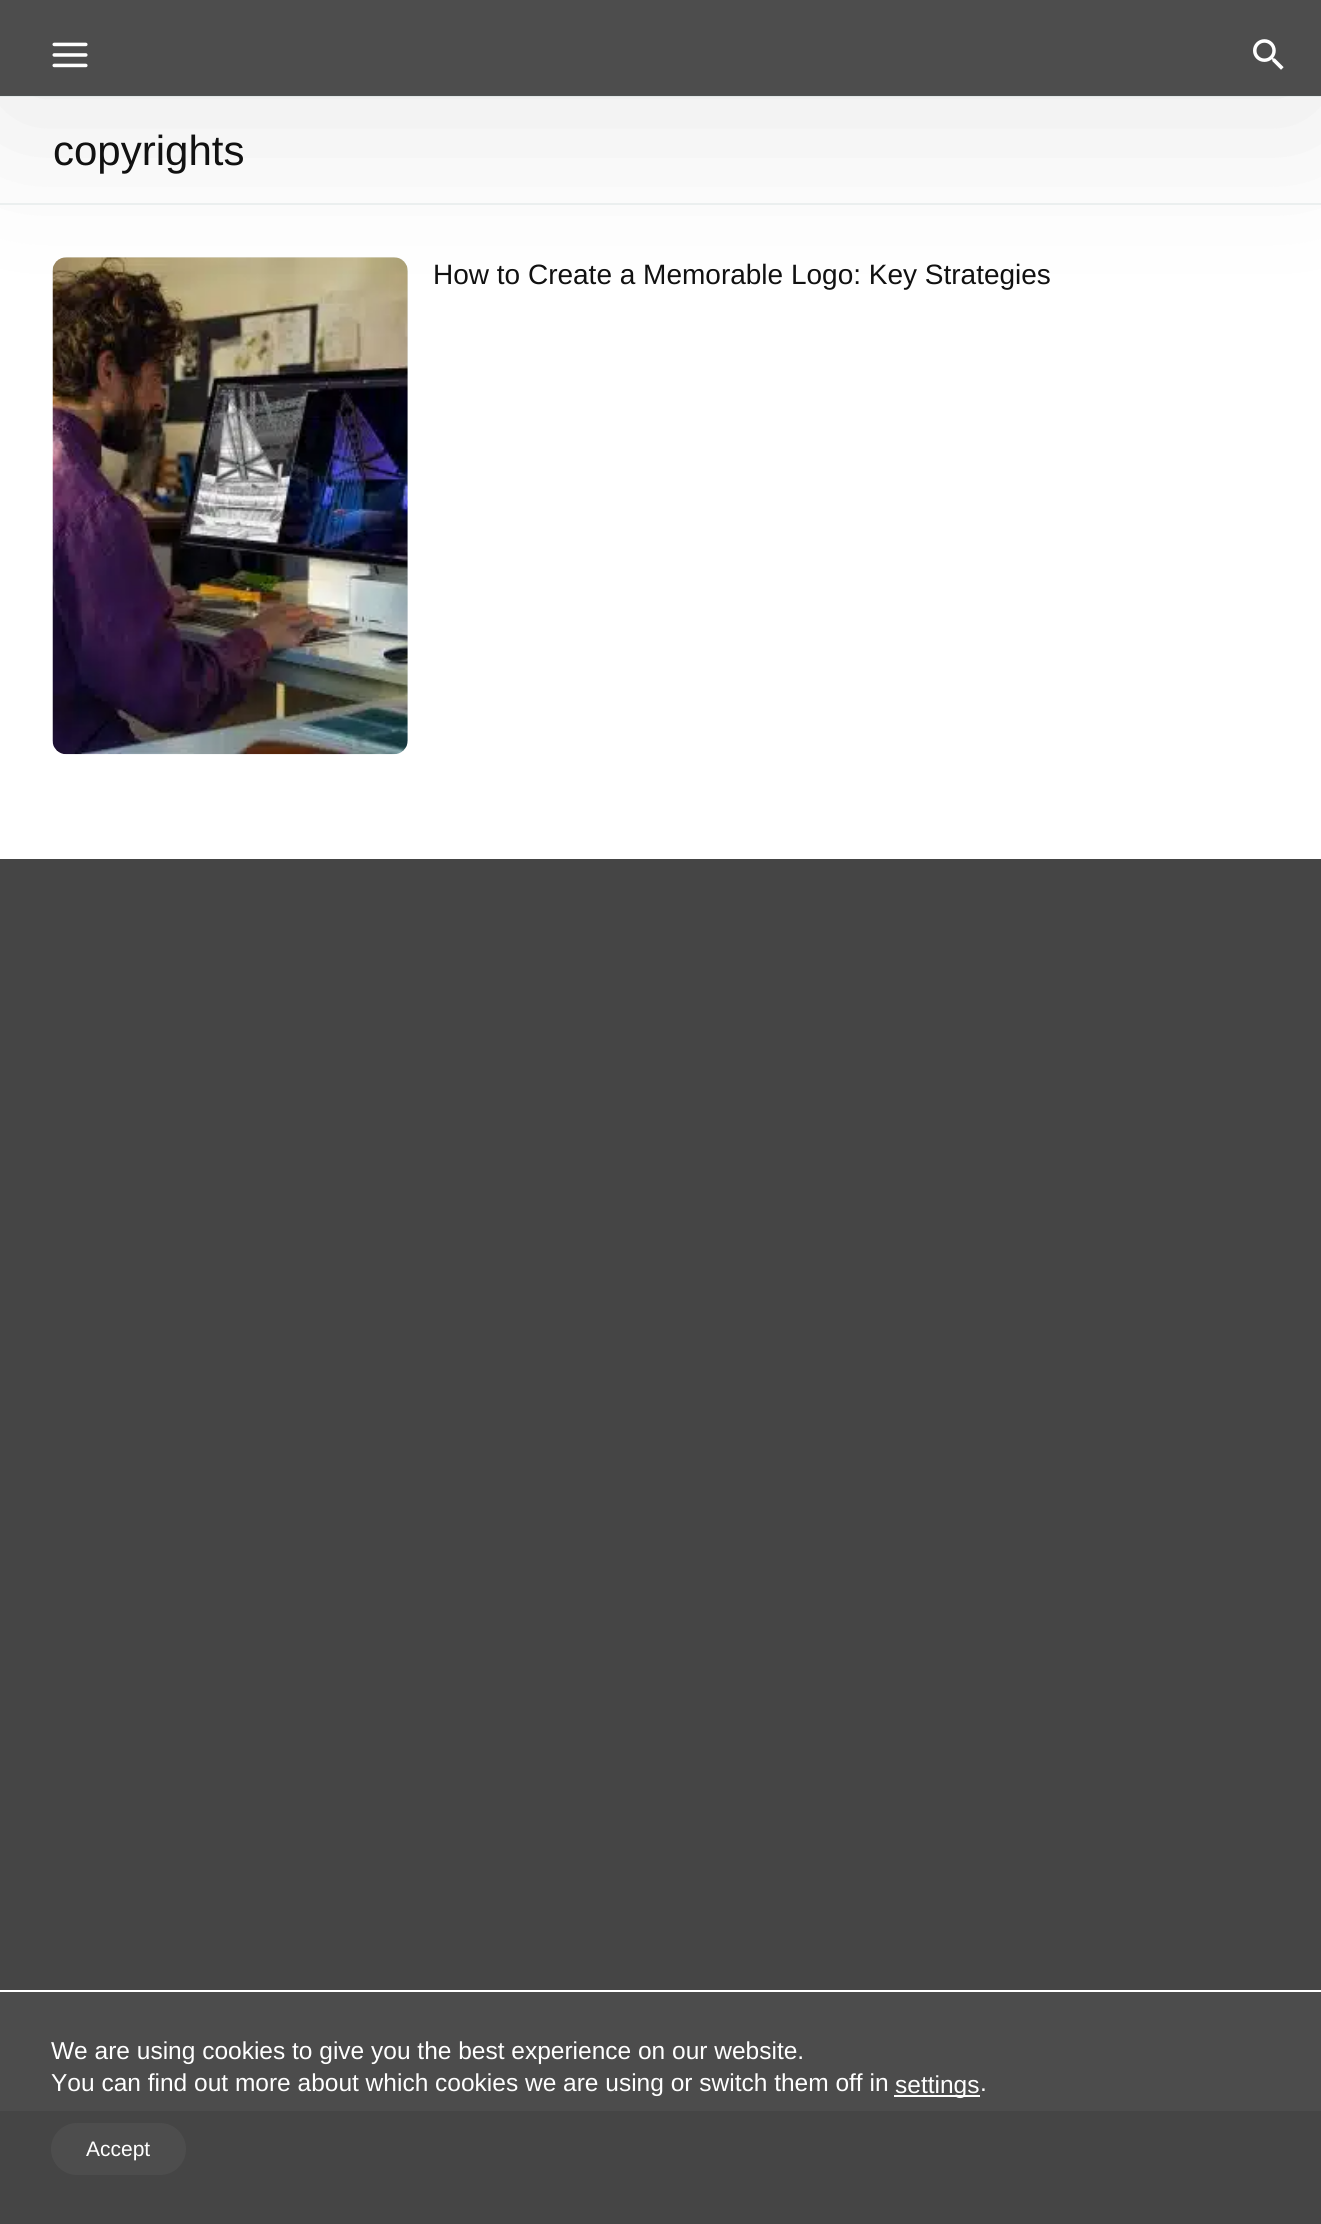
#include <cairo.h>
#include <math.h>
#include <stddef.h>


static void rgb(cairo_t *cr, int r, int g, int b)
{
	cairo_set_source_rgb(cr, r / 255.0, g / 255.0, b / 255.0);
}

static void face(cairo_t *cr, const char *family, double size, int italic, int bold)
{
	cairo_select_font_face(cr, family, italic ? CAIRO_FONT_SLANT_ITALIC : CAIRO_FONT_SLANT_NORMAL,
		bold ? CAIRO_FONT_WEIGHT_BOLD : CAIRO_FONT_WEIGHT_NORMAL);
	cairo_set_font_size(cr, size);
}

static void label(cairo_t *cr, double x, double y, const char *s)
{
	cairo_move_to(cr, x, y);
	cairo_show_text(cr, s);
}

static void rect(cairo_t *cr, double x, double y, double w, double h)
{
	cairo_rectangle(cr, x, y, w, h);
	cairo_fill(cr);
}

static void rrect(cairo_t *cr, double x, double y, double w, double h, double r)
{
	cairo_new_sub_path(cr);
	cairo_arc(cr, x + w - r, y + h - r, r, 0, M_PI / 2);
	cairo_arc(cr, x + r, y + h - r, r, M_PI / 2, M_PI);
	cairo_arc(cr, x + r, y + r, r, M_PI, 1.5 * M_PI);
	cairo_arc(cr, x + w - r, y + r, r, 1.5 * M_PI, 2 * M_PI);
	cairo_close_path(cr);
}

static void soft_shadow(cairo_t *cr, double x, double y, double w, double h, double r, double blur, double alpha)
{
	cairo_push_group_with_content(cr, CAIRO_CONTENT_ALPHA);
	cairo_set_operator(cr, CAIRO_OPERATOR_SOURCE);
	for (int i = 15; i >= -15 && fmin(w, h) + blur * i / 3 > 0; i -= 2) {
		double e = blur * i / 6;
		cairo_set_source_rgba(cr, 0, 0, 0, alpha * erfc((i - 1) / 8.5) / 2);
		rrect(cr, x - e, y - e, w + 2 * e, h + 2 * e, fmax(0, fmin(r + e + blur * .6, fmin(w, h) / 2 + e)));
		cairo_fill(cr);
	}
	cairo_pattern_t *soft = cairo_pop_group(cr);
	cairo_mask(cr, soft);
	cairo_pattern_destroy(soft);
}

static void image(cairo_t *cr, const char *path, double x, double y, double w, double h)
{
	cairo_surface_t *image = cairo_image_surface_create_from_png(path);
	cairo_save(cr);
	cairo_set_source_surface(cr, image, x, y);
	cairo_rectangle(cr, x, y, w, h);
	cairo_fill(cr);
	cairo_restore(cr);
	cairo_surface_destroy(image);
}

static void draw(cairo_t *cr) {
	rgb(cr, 69, 69, 69);
	cairo_paint(cr);
	rgb(cr, 255, 255, 255);
	rect(cr, 0, 96, 1321, 107);
	rgb(cr, 239, 243, 243);
	rect(cr, 0, 203, 1321, 2);
	rgb(cr, 255, 255, 255);
	rect(cr, 0, 205, 1321, 654);
	rgb(cr, 242, 245, 246);
	rrect(cr, 53, 257, 355, 497, 14);
	cairo_fill(cr);
	image(cr, "image2.png", 52, 257, 356, 498);
	rgb(cr, 0, 0, 0);
	soft_shadow(cr, 0, 18, 1321, 96, 0, 87.5, 0.1);
	rgb(cr, 77, 77, 77);
	rect(cr, 0, 0, 1321, 96);
	cairo_set_source_rgba(cr, 0.373, 0.514, 0.537, 0.1);
	rect(cr, 0, 95, 1321, 2);
	image(cr, "image0.png", 52, 42, 36, 26);
	image(cr, "image1.png", 1253, 39, 31, 31);
	face(cr, "Liberation Sans", 42, 0, 0);
	rgb(cr, 17, 17, 17);
	label(cr, 53, 165, "copyrights");
	face(cr, "Liberation Sans", 28, 0, 0);
	label(cr, 433, 284, "How to Create a Memorable Logo: Key Strategies");
	rgb(cr, 76, 76, 76);
	rect(cr, 0, 1992, 1321, 119);
	rgb(cr, 255, 255, 255);
	rect(cr, 0, 1990, 1321, 2);
	face(cr, "Liberation Sans", 24.5, 0, 0);
	label(cr, 51, 2059, "We are using cookies to give you the best experience on our website.");
	label(cr, 51, 2091, "You can find out more about which cookies we are using or switch them off in");
	rect(cr, 894, 2095, 86, 2);
	label(cr, 895, 2093, "settings");
	label(cr, 980, 2091, ".");
	rgb(cr, 77, 77, 77);
	rrect(cr, 51, 2123, 135, 52, 26);
	cairo_fill(cr);
	face(cr, "Liberation Sans", 21, 0, 0);
	rgb(cr, 255, 255, 255);
	label(cr, 86, 2156, "Accept");
}

int main(void) {
	cairo_surface_t *surface = cairo_image_surface_create(CAIRO_FORMAT_RGB24, 1321, 2224);
	cairo_t *cr = cairo_create(surface);
	cairo_font_options_t *options = cairo_font_options_create();
	cairo_font_options_set_hint_metrics(options, CAIRO_HINT_METRICS_OFF);
	cairo_font_options_set_hint_style(options, CAIRO_HINT_STYLE_NONE);
	cairo_set_font_options(cr, options);
	cairo_set_miter_limit(cr, 4);
	draw(cr);
	cairo_surface_write_to_png(surface, "render.png");
	cairo_font_options_destroy(options);
	cairo_destroy(cr);
	cairo_surface_destroy(surface);
	return 0;
}
